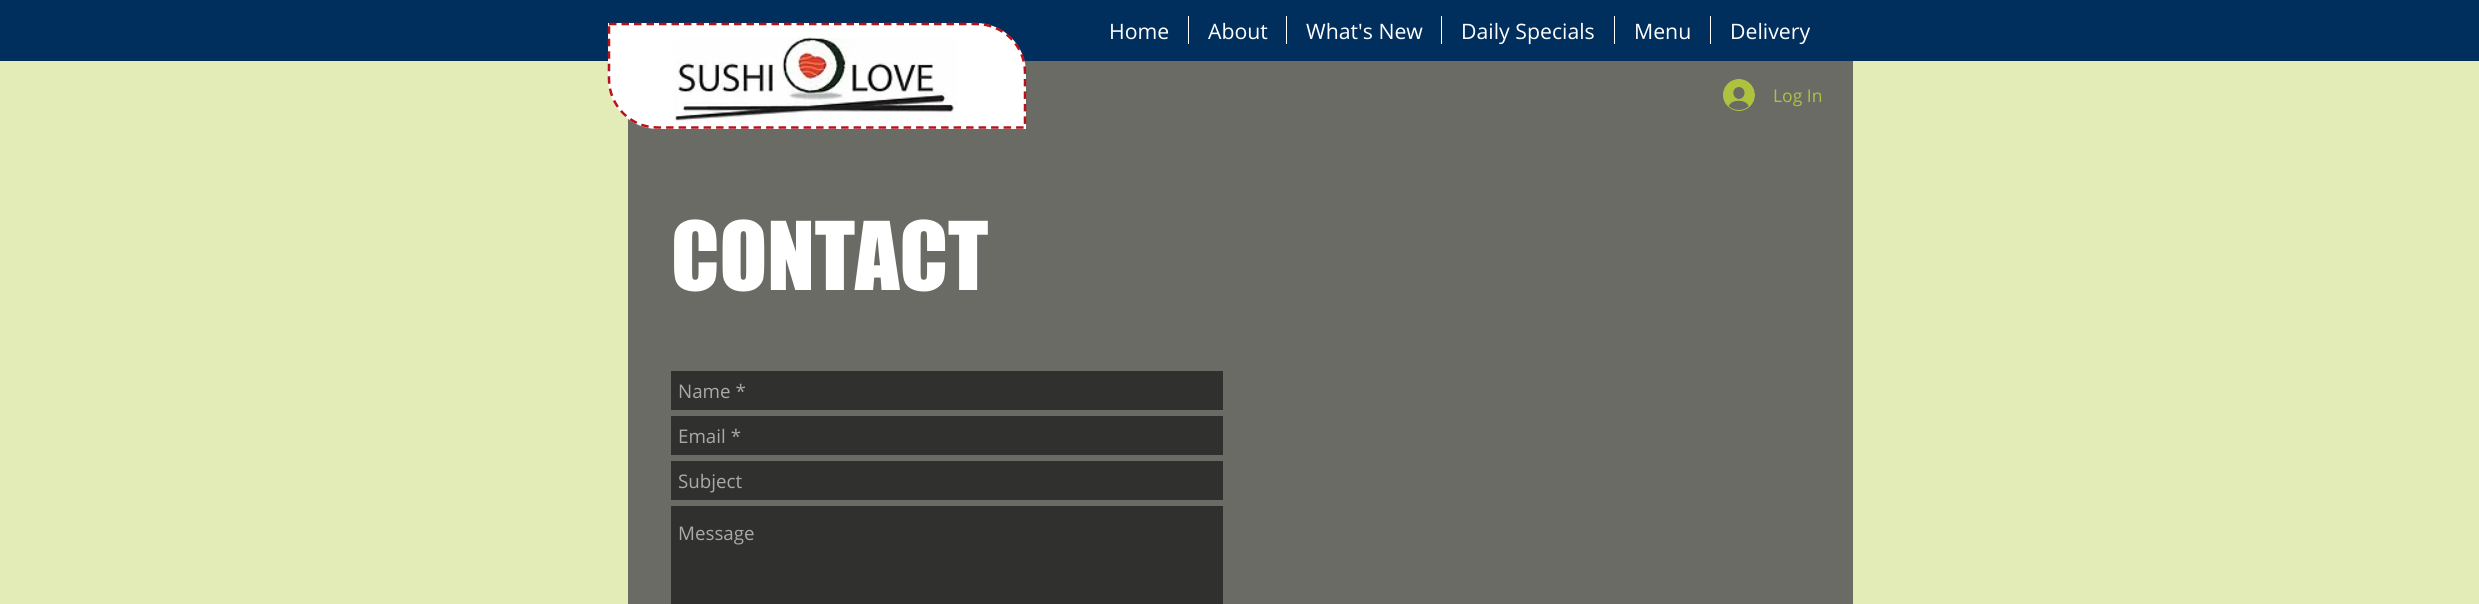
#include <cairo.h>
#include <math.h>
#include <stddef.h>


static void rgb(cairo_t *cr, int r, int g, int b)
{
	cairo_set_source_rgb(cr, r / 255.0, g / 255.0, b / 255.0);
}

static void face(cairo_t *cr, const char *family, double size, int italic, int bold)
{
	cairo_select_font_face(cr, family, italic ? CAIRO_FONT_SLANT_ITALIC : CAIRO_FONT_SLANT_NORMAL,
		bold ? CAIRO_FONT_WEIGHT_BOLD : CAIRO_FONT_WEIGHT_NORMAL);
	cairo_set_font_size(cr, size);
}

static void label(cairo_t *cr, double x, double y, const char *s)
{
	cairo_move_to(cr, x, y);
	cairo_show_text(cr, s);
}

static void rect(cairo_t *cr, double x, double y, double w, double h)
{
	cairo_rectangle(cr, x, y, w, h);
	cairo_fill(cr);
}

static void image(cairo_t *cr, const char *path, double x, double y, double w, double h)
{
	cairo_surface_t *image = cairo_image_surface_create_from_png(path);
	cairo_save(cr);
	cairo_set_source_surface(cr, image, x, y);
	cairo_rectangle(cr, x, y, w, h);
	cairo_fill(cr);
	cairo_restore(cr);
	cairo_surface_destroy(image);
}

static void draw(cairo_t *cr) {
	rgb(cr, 227, 235, 182);
	cairo_paint(cr);
	rgb(cr, 0, 46, 93);
	rect(cr, 0, 0, 2479, 61);
	rgb(cr, 106, 107, 100);
	rect(cr, 628, 61, 1225, 543);
	rgb(cr, 255, 255, 255);
	cairo_new_path(cr);
	cairo_move_to(cr, 608, 23);
	cairo_line_to(cr, 976, 23);
	cairo_curve_to(cr, 1003.5, 23, 1026, 45.5, 1026, 73);
	cairo_line_to(cr, 1026, 129);
	cairo_line_to(cr, 658, 129);
	cairo_curve_to(cr, 630.5, 129, 608, 106.5, 608, 79);
	cairo_close_path(cr);
	cairo_fill(cr);
	cairo_new_path(cr);
	cairo_move_to(cr, 609, 24);
	cairo_line_to(cr, 976, 24);
	cairo_curve_to(cr, 1003, 24, 1025, 45.5, 1025, 72.5);
	cairo_line_to(cr, 1025, 127.5);
	cairo_line_to(cr, 657.5, 127.5);
	cairo_curve_to(cr, 630.5, 127.5, 609, 105.5, 609, 79);
	cairo_close_path(cr);
	rgb(cr, 183, 18, 27);
	cairo_set_line_width(cr, 2.5);
	cairo_set_dash(cr, (double[]){7.5, 5}, 2, 0);
	cairo_stroke(cr);
	image(cr, "image0.png", 673, 37, 284, 84);
	face(cr, "Open Sans", 21.25, 0, 0);
	rgb(cr, 255, 255, 255);
	label(cr, 1109, 39, "Home");
	rect(cr, 1188, 16, 1, 28);
	label(cr, 1208, 39, "About");
	rect(cr, 1286, 16, 1, 28);
	label(cr, 1306, 39, "What's New");
	rect(cr, 1441, 16, 1, 28);
	label(cr, 1461, 39, "Daily Specials");
	rect(cr, 1614, 16, 1, 28);
	label(cr, 1634, 39, "Menu");
	rect(cr, 1710, 16, 1, 28);
	label(cr, 1730, 39, "Delivery");
	image(cr, "image1.png", 1723, 79, 32, 32);
	face(cr, "Open Sans", 17.5, 0, 0);
	rgb(cr, 174, 194, 64);
	label(cr, 1773, 102, "Log In");
	face(cr, "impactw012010", 87.5, 0, 0);
	rgb(cr, 255, 255, 255);
	label(cr, 671, 290, "CONTACT");
	rgb(cr, 48, 48, 47);
	rect(cr, 671, 371, 552, 39);
	face(cr, "Open Sans", 18.75, 0, 0);
	rgb(cr, 169, 169, 169);
	label(cr, 678, 398, "Name *");
	rgb(cr, 48, 48, 47);
	rect(cr, 671, 416, 552, 39);
	rgb(cr, 169, 169, 169);
	label(cr, 678, 443, "Email *");
	rgb(cr, 48, 48, 47);
	rect(cr, 671, 461, 552, 39);
	rgb(cr, 169, 169, 169);
	label(cr, 678, 488, "Subject");
	rgb(cr, 48, 48, 47);
	rect(cr, 671, 506, 552, 98);
	rgb(cr, 169, 169, 169);
	label(cr, 678, 540, "Message");
}

int main(void) {
	cairo_surface_t *surface = cairo_image_surface_create(CAIRO_FORMAT_RGB24, 2479, 604);
	cairo_t *cr = cairo_create(surface);
	cairo_font_options_t *options = cairo_font_options_create();
	cairo_font_options_set_hint_metrics(options, CAIRO_HINT_METRICS_OFF);
	cairo_font_options_set_hint_style(options, CAIRO_HINT_STYLE_NONE);
	cairo_set_font_options(cr, options);
	cairo_set_miter_limit(cr, 4);
	draw(cr);
	cairo_surface_write_to_png(surface, "render.png");
	cairo_font_options_destroy(options);
	cairo_destroy(cr);
	cairo_surface_destroy(surface);
	return 0;
}
